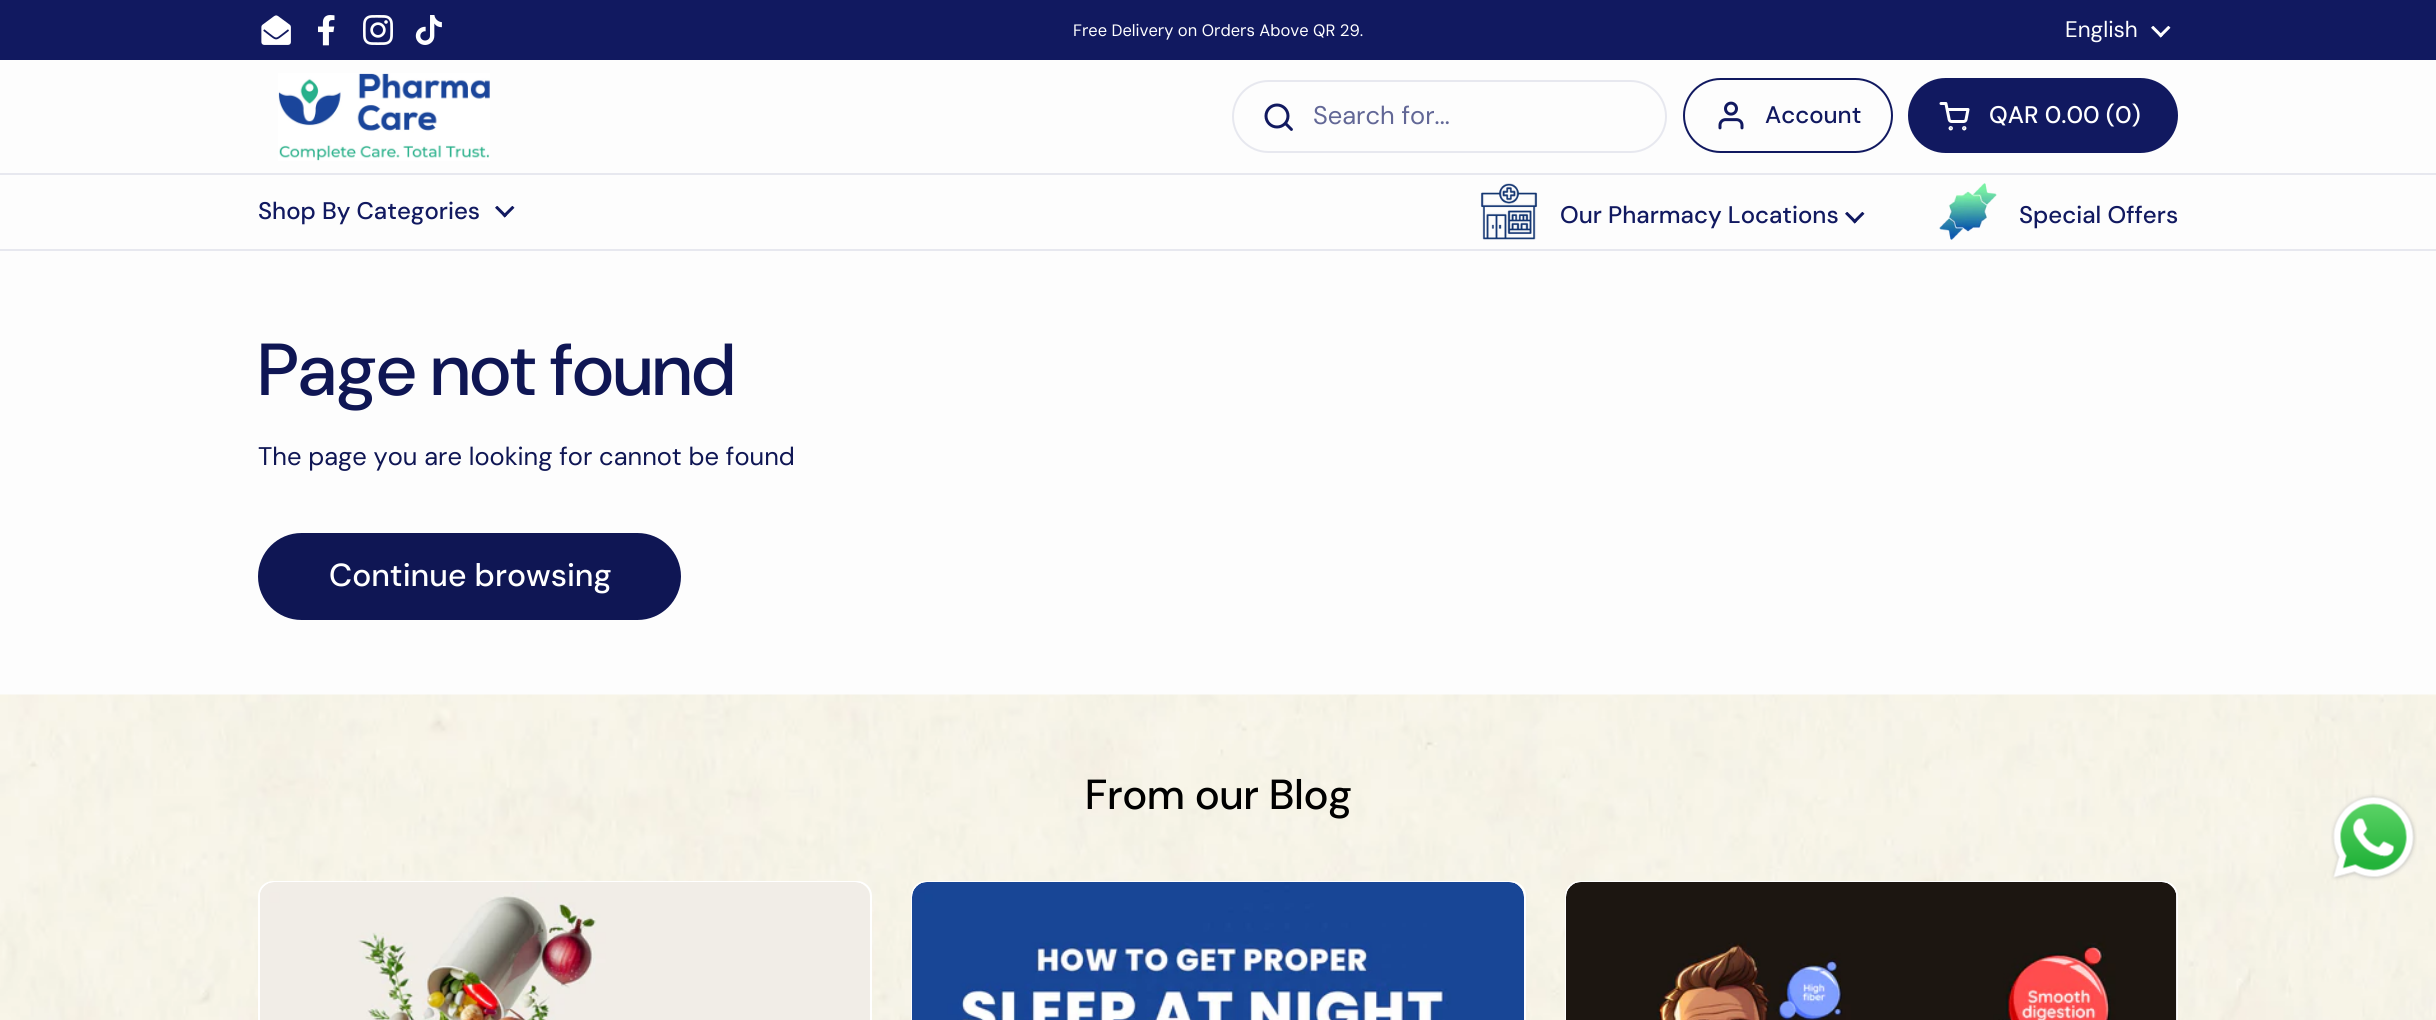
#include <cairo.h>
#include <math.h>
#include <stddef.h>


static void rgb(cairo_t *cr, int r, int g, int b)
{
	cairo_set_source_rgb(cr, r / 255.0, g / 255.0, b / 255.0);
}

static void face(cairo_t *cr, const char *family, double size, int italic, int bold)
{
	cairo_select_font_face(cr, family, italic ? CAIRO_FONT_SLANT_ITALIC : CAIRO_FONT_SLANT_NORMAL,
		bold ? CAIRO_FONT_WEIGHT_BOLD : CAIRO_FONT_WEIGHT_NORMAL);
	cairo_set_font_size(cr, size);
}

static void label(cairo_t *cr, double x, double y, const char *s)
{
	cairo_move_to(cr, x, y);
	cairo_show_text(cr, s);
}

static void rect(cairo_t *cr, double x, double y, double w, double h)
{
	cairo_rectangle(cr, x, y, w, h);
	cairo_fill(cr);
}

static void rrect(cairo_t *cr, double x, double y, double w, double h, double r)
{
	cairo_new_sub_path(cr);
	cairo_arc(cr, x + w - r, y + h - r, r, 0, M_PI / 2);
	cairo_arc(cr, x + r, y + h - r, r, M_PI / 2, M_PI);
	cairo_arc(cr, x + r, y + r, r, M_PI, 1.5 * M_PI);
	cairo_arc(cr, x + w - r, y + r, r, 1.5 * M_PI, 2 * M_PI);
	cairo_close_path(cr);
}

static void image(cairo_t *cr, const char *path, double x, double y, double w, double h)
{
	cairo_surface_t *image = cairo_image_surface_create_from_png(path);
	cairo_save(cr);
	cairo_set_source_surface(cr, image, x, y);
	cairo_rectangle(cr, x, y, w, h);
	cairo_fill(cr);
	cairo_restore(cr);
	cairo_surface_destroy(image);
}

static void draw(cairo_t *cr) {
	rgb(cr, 253, 253, 253);
	cairo_paint(cr);
	rgb(cr, 17, 25, 96);
	rect(cr, 0, 0, 2436, 60);
	image(cr, "image0.png", 261, 15, 30, 30);
	image(cr, "image1.png", 318, 15, 17, 31);
	image(cr, "image2.png", 363, 15, 30, 30);
	image(cr, "image3.png", 415, 15, 27, 30);
	face(cr, "DM Sans", 16.5, 0, 0);
	rgb(cr, 255, 255, 255);
	label(cr, 1073, 36, "Free Delivery on Orders Above QR 29.");
	face(cr, "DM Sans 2", 22.5, 0, 0);
	label(cr, 2065, 37, "English");
	image(cr, "image4.png", 2151, 26, 20, 12);
	rgb(cr, 231, 232, 239);
	rect(cr, 0, 173, 2436, 2);
	image(cr, "image5.png", 278, 73, 212, 88);
	rrect(cr, 1233, 81, 433, 71, 35.5);
	cairo_stroke(cr);
	image(cr, "image6.png", 1264, 103, 29, 28);
	face(cr, "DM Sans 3", 25.5, 0, 0);
	rgb(cr, 98, 103, 150);
	label(cr, 1313, 124, "Search for...");
	rrect(cr, 1684, 79, 208, 73, 36.5);
	rgb(cr, 17, 25, 96);
	cairo_stroke(cr);
	image(cr, "image7.png", 1718, 101, 26, 29);
	face(cr, "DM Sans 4 Medium", 24, 0, 0);
	label(cr, 1765, 123, "Account");
	rrect(cr, 1909, 79, 268, 73, 36.5);
	cairo_fill_preserve(cr);
	cairo_stroke(cr);
	image(cr, "image8.png", 1939, 102, 31, 29);
	rgb(cr, 255, 255, 255);
	label(cr, 1989, 123, "QAR 0.00 (0)");
	rgb(cr, 231, 232, 239);
	rect(cr, 0, 249, 2436, 2);
	rgb(cr, 17, 25, 96);
	label(cr, 258, 219, "Shop By Categories");
	image(cr, "image9.png", 495, 206, 20, 12);
	image(cr, "image10.png", 1480, 183, 58, 57);
	label(cr, 1560, 223, "Our Pharmacy Locations");
	image(cr, "image9.png", 1845, 212, 20, 12);
	image(cr, "image11.png", 1939, 183, 58, 57);
	label(cr, 2019, 223, "Special Offers");
	face(cr, "DM Sans Medium", 73.5, 0, 0);
	rgb(cr, 15, 22, 84);
	label(cr, 258, 395, "Page not found");
	face(cr, "DM Sans 3", 25.5, 0, 0);
	label(cr, 258, 465, "The page you are looking for cannot be found");
	rrect(cr, 259, 534, 421, 85, 42.5);
	cairo_fill_preserve(cr);
	cairo_stroke(cr);
	face(cr, "DM Sans 2 Medium", 31.9, 0, 0);
	rgb(cr, 255, 255, 255);
	label(cr, 329, 586, "Continue browsing");
	image(cr, "image12.png", 0, 694, 2436, 326);
	face(cr, "DM Sans 3 Medium", 42, 0, 0);
	rgb(cr, 0, 0, 0);
	label(cr, 1085, 809, "From our Blog");
	rrect(cr, 259, 882, 612, 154, 14);
	rgb(cr, 255, 255, 255);
	cairo_stroke(cr);
	image(cr, "image13.png", 260, 882, 610, 138);
	rrect(cr, 912, 882, 613, 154, 14);
	cairo_stroke(cr);
	image(cr, "image14.png", 912, 882, 612, 138);
	rrect(cr, 1566, 882, 611, 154, 14);
	cairo_stroke(cr);
	image(cr, "image15.png", 1566, 882, 611, 138);
	image(cr, "image16.png", 2331, 794, 86, 87);
}

int main(void) {
	cairo_surface_t *surface = cairo_image_surface_create(CAIRO_FORMAT_RGB24, 2436, 1020);
	cairo_t *cr = cairo_create(surface);
	cairo_font_options_t *options = cairo_font_options_create();
	cairo_font_options_set_hint_metrics(options, CAIRO_HINT_METRICS_OFF);
	cairo_font_options_set_hint_style(options, CAIRO_HINT_STYLE_NONE);
	cairo_set_font_options(cr, options);
	cairo_set_miter_limit(cr, 4);
	draw(cr);
	cairo_surface_write_to_png(surface, "render.png");
	cairo_font_options_destroy(options);
	cairo_destroy(cr);
	cairo_surface_destroy(surface);
	return 0;
}
